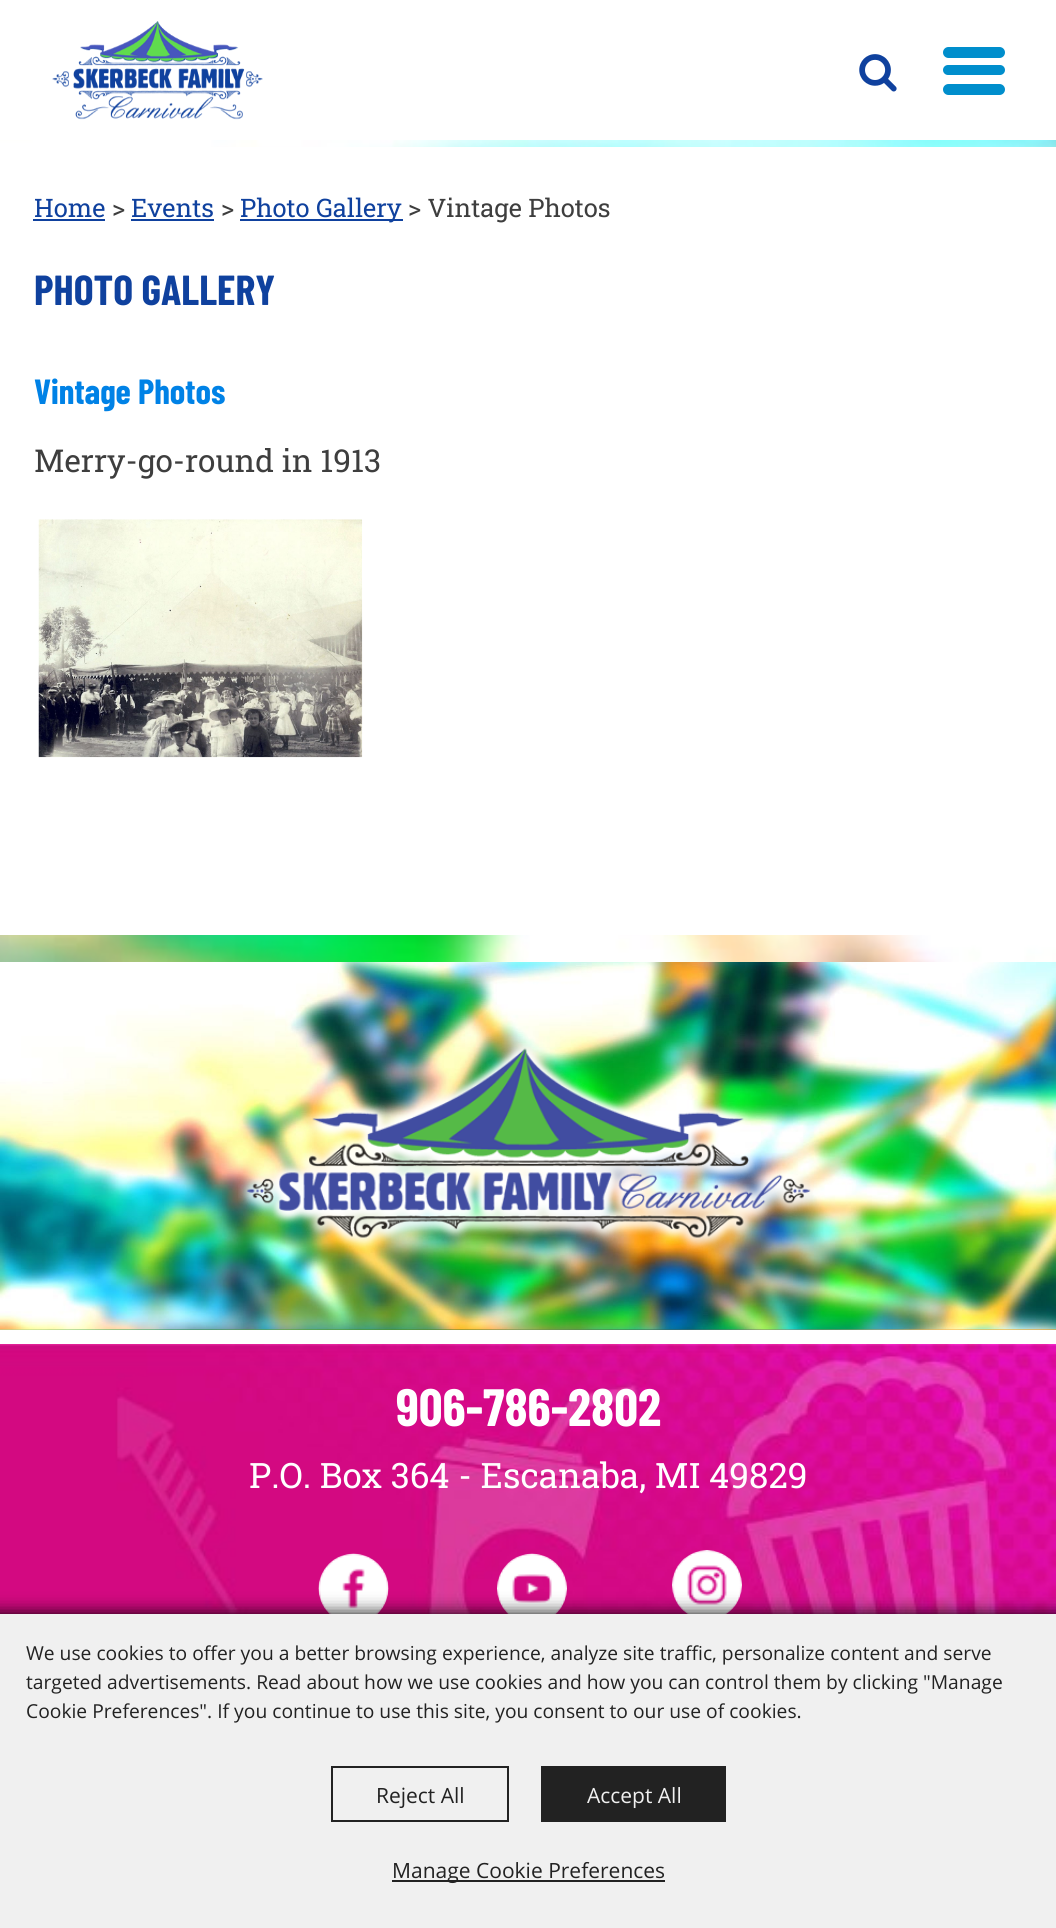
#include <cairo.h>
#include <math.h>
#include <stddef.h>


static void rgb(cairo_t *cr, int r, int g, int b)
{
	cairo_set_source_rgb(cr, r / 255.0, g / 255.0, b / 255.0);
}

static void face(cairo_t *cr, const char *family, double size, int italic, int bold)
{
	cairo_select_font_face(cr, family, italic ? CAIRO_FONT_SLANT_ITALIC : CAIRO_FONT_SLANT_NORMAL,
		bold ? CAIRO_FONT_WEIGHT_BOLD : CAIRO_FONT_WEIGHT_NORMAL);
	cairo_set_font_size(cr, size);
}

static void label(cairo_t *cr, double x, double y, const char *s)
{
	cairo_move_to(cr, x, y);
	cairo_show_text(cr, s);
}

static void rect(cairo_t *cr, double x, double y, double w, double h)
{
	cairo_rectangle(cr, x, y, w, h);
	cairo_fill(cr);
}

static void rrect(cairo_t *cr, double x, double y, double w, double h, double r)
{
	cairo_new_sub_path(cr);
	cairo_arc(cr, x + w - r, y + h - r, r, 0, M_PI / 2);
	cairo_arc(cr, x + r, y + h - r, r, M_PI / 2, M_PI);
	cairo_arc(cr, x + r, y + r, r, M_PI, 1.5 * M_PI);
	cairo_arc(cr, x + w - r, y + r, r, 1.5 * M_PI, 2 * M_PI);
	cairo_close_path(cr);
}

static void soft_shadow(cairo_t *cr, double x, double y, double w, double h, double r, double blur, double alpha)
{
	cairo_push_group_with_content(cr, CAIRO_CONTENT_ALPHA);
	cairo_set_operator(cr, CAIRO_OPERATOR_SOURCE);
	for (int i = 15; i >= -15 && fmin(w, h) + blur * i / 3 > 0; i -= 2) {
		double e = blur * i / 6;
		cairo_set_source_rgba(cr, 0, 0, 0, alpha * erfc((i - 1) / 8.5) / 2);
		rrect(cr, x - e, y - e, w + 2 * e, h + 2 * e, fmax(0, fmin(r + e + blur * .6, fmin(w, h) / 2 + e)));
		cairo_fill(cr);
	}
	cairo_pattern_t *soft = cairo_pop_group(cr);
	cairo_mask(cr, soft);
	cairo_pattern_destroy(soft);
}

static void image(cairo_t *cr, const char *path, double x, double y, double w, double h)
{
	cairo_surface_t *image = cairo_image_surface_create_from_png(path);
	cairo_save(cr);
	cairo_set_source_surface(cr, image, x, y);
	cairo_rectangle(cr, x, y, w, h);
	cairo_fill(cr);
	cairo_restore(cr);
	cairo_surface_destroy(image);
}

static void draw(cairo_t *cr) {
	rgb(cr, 255, 255, 255);
	cairo_paint(cr);
	image(cr, "image0.png", 0, 140, 1056, 1190);
	image(cr, "image1.png", 52, 21, 211, 99);
	image(cr, "image2.png", 859, 54, 38, 38);
	rgb(cr, 0, 142, 204);
	rrect(cr, 943, 47, 62, 11, 5.5);
	cairo_fill(cr);
	rrect(cr, 943, 65, 62, 10, 5);
	cairo_fill(cr);
	rrect(cr, 943, 84, 62, 11, 5.5);
	cairo_fill(cr);
	rgb(cr, 255, 255, 255);
	rect(cr, 0, 147, 1056, 788);
	face(cr, "Roboto Slab", 25.5, 0, 0);
	rgb(cr, 15, 65, 158);
	label(cr, 34, 217, "Home");
	rect(cr, 33, 219, 72, 2);
	rgb(cr, 62, 62, 62);
	label(cr, 112, 217, ">");
	rgb(cr, 15, 65, 158);
	label(cr, 131, 217, "Events");
	rect(cr, 131, 219, 83, 2);
	rgb(cr, 62, 62, 62);
	label(cr, 221, 217, ">");
	rgb(cr, 15, 65, 158);
	rect(cr, 240, 219, 163, 2);
	label(cr, 240, 217, "Photo Gallery");
	rgb(cr, 62, 62, 62);
	label(cr, 408, 217, "> Vintage Photos");
	face(cr, "Barlow Condensed", 42, 0, 1);
	rgb(cr, 15, 65, 158);
	label(cr, 34, 305, "PHOTO GALLERY");
	face(cr, "Barlow Condensed", 35, 0, 1);
	rgb(cr, 0, 130, 230);
	label(cr, 34, 404, "Vintage Photos");
	face(cr, "Roboto Slab", 31.5, 0, 0);
	rgb(cr, 62, 62, 62);
	label(cr, 34, 472, "Merry-go-round in 1913");
	image(cr, "image3.png", 38, 519, 325, 239);
	image(cr, "image4.png", 0, 962, 1056, 368);
	image(cr, "image5.png", 238, 1043, 578, 209);
	image(cr, "image6.png", 0, 1344, 1056, 270);
	face(cr, "Barlow Condensed", 52.5, 0, 1);
	rgb(cr, 255, 255, 255);
	label(cr, 396, 1426, "906-786-2802");
	face(cr, "Roboto Slab", 35, 0, 0);
	label(cr, 249, 1488, "P.O. Box 364 - Escanaba, MI 49829");
	image(cr, "image7.png", 318, 1553, 71, 61);
	image(cr, "image8.png", 497, 1553, 70, 61);
	image(cr, "image9.png", 672, 1550, 70, 64);
	rgb(cr, 0, 0, 0);
	soft_shadow(cr, -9, 1614, 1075, 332, 0, 9, 1);
	rgb(cr, 240, 240, 240);
	rect(cr, 0, 1614, 1056, 314);
	face(cr, "Open Sans", 19.25, 0, 0);
	rgb(cr, 34, 34, 34);
	label(cr, 26, 1660, "We use cookies to offer you a better browsing experience, analyze site traffic, personalize content and serve");
	label(cr, 26, 1689, "targeted advertisements. Read about how we use cookies and how you can control them by clicking \"Manage");
	label(cr, 26, 1718, "Cookie Preferences\". If you continue to use this site, you consent to our use of cookies.");
	cairo_rectangle(cr, 332, 1767, 176, 54);
	cairo_stroke(cr);
	face(cr, "Open Sans", 21, 0, 0);
	label(cr, 376, 1803, "Reject All");
	rect(cr, 541, 1766, 185, 56);
	rgb(cr, 240, 240, 240);
	label(cr, 587, 1803, "Accept All");
	rgb(cr, 34, 34, 34);
	rect(cr, 392, 1880, 273, 2);
	label(cr, 392, 1878, "Manage Cookie Preferences");
}

int main(void) {
	cairo_surface_t *surface = cairo_image_surface_create(CAIRO_FORMAT_RGB24, 1056, 1928);
	cairo_t *cr = cairo_create(surface);
	cairo_font_options_t *options = cairo_font_options_create();
	cairo_font_options_set_hint_metrics(options, CAIRO_HINT_METRICS_OFF);
	cairo_font_options_set_hint_style(options, CAIRO_HINT_STYLE_NONE);
	cairo_set_font_options(cr, options);
	cairo_set_miter_limit(cr, 4);
	draw(cr);
	cairo_surface_write_to_png(surface, "render.png");
	cairo_font_options_destroy(options);
	cairo_destroy(cr);
	cairo_surface_destroy(surface);
	return 0;
}
